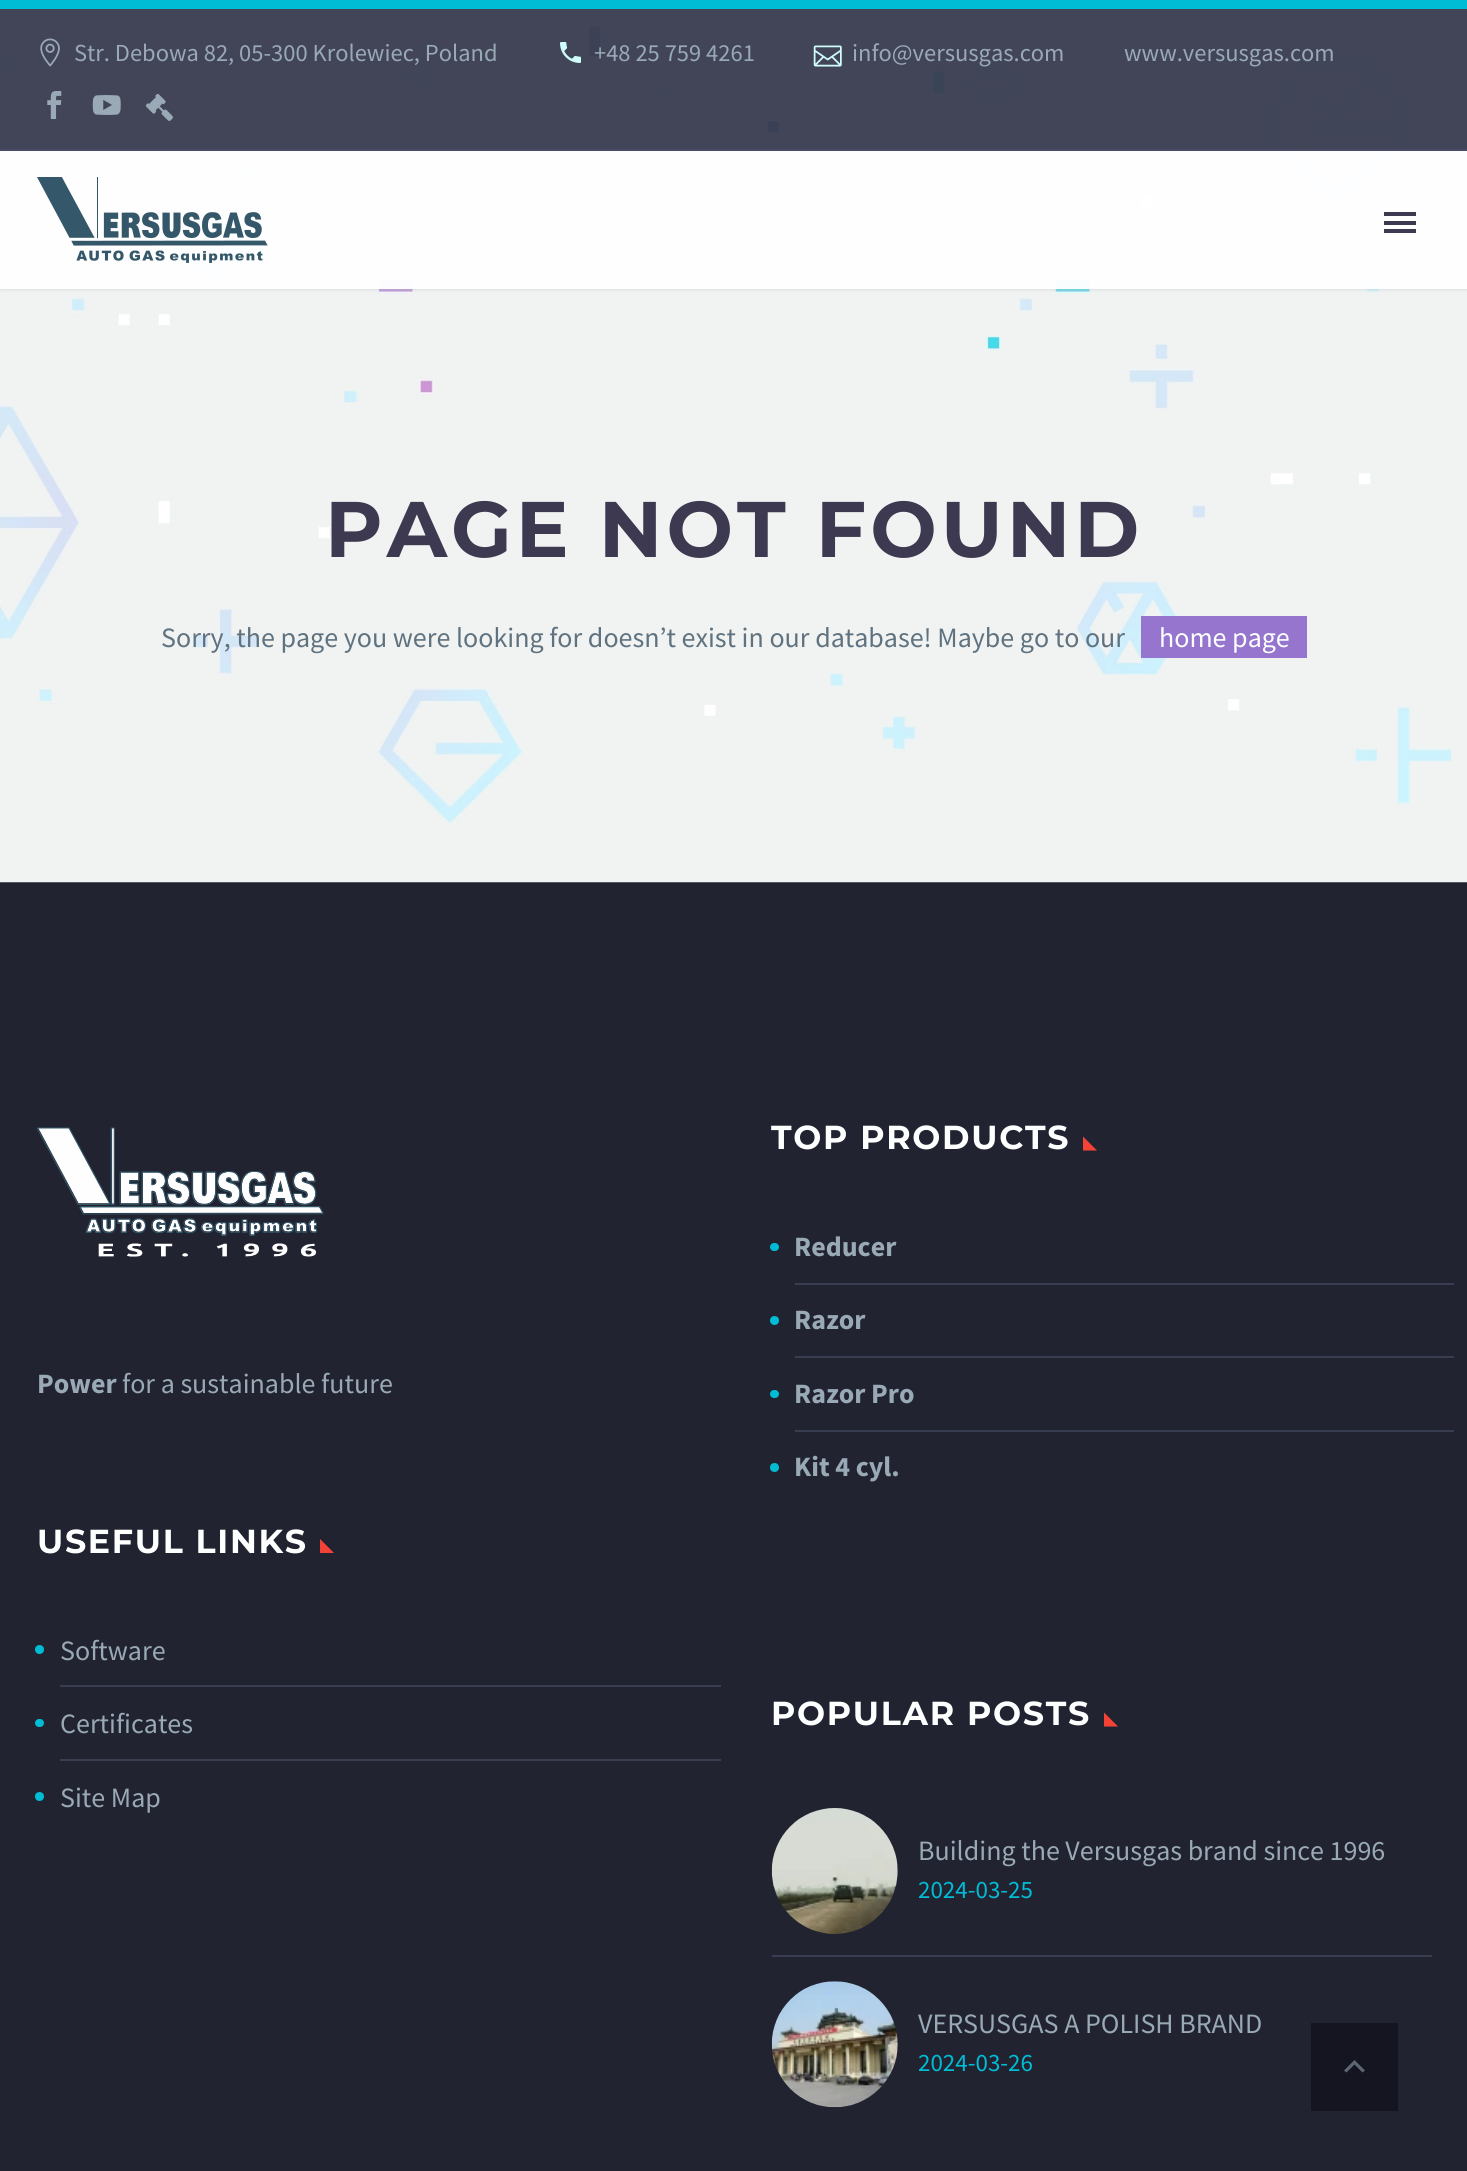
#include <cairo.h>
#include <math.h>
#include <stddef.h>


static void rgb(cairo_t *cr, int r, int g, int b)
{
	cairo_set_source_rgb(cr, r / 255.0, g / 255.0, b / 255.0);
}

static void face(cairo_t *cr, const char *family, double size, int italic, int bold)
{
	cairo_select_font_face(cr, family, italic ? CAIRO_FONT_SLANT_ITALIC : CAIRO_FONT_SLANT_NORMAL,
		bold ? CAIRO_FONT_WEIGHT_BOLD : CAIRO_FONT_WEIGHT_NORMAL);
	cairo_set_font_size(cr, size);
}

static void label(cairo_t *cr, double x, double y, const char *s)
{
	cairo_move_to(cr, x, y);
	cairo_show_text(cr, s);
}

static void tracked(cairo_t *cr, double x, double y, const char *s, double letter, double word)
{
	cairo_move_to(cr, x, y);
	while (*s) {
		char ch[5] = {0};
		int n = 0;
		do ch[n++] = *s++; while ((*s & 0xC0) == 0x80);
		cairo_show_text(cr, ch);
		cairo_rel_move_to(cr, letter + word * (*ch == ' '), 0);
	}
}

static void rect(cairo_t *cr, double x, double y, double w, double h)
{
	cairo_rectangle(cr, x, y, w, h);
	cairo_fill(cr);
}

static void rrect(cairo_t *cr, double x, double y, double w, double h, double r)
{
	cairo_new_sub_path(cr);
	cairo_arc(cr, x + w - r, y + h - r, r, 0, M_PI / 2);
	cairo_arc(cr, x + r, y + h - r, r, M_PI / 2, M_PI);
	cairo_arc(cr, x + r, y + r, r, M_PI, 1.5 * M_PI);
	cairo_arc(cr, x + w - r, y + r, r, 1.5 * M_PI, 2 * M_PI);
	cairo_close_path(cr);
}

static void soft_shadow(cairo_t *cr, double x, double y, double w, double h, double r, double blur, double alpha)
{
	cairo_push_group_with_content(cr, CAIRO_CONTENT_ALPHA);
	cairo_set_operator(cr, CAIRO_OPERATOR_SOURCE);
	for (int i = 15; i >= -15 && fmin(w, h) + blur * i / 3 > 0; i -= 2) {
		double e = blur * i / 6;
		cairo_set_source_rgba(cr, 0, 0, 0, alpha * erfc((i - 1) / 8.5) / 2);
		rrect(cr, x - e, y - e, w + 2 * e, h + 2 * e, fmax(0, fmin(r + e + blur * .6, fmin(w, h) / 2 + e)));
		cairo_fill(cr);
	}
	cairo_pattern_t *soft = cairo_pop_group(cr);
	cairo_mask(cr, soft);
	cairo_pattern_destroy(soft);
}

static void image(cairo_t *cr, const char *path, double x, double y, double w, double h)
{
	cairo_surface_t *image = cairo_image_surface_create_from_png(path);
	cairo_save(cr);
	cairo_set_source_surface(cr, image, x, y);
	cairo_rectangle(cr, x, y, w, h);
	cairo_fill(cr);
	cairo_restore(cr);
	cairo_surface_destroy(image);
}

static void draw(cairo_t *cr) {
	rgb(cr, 33, 35, 49);
	cairo_paint(cr);
	rgb(cr, 240, 243, 242);
	rect(cr, 0, 9, 1467, 16);
	image(cr, "image7.png", 0, 25, 1467, 858);
	cairo_save(cr);
	cairo_set_fill_rule(cr, CAIRO_FILL_RULE_EVEN_ODD);
	cairo_new_path(cr);
	cairo_move_to(cr, 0, 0);
	cairo_line_to(cr, 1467, 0);
	cairo_line_to(cr, 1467, 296);
	cairo_line_to(cr, 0, 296);
	cairo_close_path(cr);
	cairo_move_to(cr, 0, 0);
	cairo_line_to(cr, 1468, 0);
	cairo_line_to(cr, 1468, 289);
	cairo_line_to(cr, 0, 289);
	cairo_close_path(cr);
	cairo_clip(cr);
	rgb(cr, 56, 69, 84);
	soft_shadow(cr, 0, 0, 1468, 289, 0, 2, 0.2);
	cairo_restore(cr);
	cairo_set_source_rgba(cr, 0.224, 0.239, 0.314, 0.95);
	rect(cr, 0, 9, 1467, 140);
	rgb(cr, 0, 188, 212);
	rect(cr, 0, 0, 1467, 9);
	rgb(cr, 73, 76, 100);
	rect(cr, 0, 149, 1467, 2);
	image(cr, "image0.png", 40, 38, 20, 29);
	face(cr, "Source Sans Pro", 24.5, 0, 0);
	rgb(cr, 153, 169, 181);
	label(cr, 74, 61, "Str. Debowa 82, 05-300 Krolewiec, Poland");
	image(cr, "image1.png", 560, 42, 21, 21);
	label(cr, 594, 61, "+48 25 759 4261");
	image(cr, "image2.png", 813, 45, 29, 22);
	label(cr, 852, 61, "info@versusgas.com");
	label(cr, 1124, 61, "www.versusgas.com");
	image(cr, "image3.png", 47, 91, 15, 28);
	image(cr, "image4.png", 92, 95, 29, 20);
	image(cr, "image5.png", 145, 93, 28, 28);
	cairo_set_source_rgba(cr, 1, 1, 1, 0.95);
	rect(cr, 0, 151, 1467, 138);
	image(cr, "image6.png", 37, 177, 231, 86);
	rgb(cr, 60, 57, 80);
	rect(cr, 1384, 212, 32, 4);
	rect(cr, 1384, 221, 32, 4);
	rect(cr, 1384, 229, 32, 4);
	face(cr, "Montserrat", 78.75, 0, 1);
	tracked(cr, 325, 557, "PAGE NOT FOUND", 4, 0);
	face(cr, "Source Sans Pro", 28, 0, 0);
	rgb(cr, 95, 114, 127);
	label(cr, 161, 647, "Sorry, the page you were looking for doesn’t exist in our database! Maybe go to our");
	rgb(cr, 149, 117, 205);
	rect(cr, 1141, 616, 166, 42);
	rgb(cr, 254, 255, 255);
	label(cr, 1159, 647, "home page");
	image(cr, "image8.png", 37, 1127, 287, 130);
	face(cr, "Source Sans Pro", 28, 0, 1);
	rgb(cr, 153, 169, 181);
	label(cr, 37, 1393, "Power");
	face(cr, "Source Sans Pro", 28, 0, 0);
	label(cr, 122, 1393, "for a sustainable future");
	face(cr, "Montserrat", 33.25, 0, 1);
	rgb(cr, 254, 255, 255);
	tracked(cr, 771, 1149, "TOP PRODUCTS", 1.7, 0);
	rgb(cr, 244, 67, 54);
	cairo_new_path(cr);
	cairo_move_to(cr, 1083, 1136.5);
	cairo_line_to(cr, 1083, 1150.5);
	cairo_line_to(cr, 1097, 1150.5);
	cairo_close_path(cr);
	cairo_fill(cr);
	rgb(cr, 57, 61, 80);
	rect(cr, 795, 1283, 659, 2);
	rgb(cr, 0, 188, 212);
	rrect(cr, 770, 1243, 9, 8, 4);
	cairo_fill(cr);
	face(cr, "Source Sans Pro", 28, 0, 1);
	rgb(cr, 153, 169, 181);
	label(cr, 794, 1256, "Reducer");
	rgb(cr, 57, 61, 80);
	rect(cr, 795, 1356, 659, 2);
	rgb(cr, 0, 188, 212);
	cairo_new_path(cr);
	cairo_arc(cr, 774.5, 1320.5, 4.5, 0, 2 * M_PI);
	cairo_fill(cr);
	rgb(cr, 153, 169, 181);
	label(cr, 794, 1329, "Razor");
	rgb(cr, 57, 61, 80);
	rect(cr, 795, 1430, 659, 2);
	rgb(cr, 0, 188, 212);
	rrect(cr, 770, 1390, 9, 8, 4);
	cairo_fill(cr);
	rgb(cr, 153, 169, 181);
	label(cr, 794, 1403, "Razor Pro");
	rgb(cr, 0, 188, 212);
	cairo_new_path(cr);
	cairo_arc(cr, 774.5, 1467.5, 4.5, 0, 2 * M_PI);
	cairo_fill(cr);
	rgb(cr, 153, 169, 181);
	label(cr, 794, 1476, "Kit 4 cyl.");
	face(cr, "Montserrat", 33.25, 0, 1);
	rgb(cr, 254, 255, 255);
	tracked(cr, 37, 1553, "USEFUL LINKS", 1.7, 0);
	rgb(cr, 244, 67, 54);
	cairo_new_path(cr);
	cairo_move_to(cr, 320, 1539);
	cairo_line_to(cr, 320, 1553);
	cairo_line_to(cr, 334, 1553);
	cairo_close_path(cr);
	cairo_fill(cr);
	rgb(cr, 57, 61, 80);
	rect(cr, 60, 1685, 661, 2);
	rgb(cr, 0, 188, 212);
	cairo_arc(cr, 39.5, 1649.5, 4.5, 0, 2 * M_PI);
	cairo_fill(cr);
	face(cr, "Source Sans Pro", 28, 0, 0);
	rgb(cr, 153, 169, 181);
	label(cr, 60, 1660, "Software");
	rgb(cr, 57, 61, 80);
	rect(cr, 60, 1759, 661, 2);
	rgb(cr, 0, 188, 212);
	rrect(cr, 35, 1719, 9, 8, 4);
	cairo_fill(cr);
	rgb(cr, 153, 169, 181);
	label(cr, 60, 1733, "Certificates");
	rgb(cr, 0, 188, 212);
	cairo_new_path(cr);
	cairo_arc(cr, 39.5, 1796.5, 4.5, 0, 2 * M_PI);
	cairo_fill(cr);
	rgb(cr, 153, 169, 181);
	label(cr, 60, 1807, "Site Map");
	face(cr, "Montserrat", 33.25, 0, 1);
	rgb(cr, 254, 255, 255);
	tracked(cr, 771, 1725, "POPULAR POSTS", 1.7, 0);
	rgb(cr, 244, 67, 54);
	cairo_new_path(cr);
	cairo_move_to(cr, 1104, 1712.5);
	cairo_line_to(cr, 1104, 1726.5);
	cairo_line_to(cr, 1118, 1726.5);
	cairo_close_path(cr);
	cairo_fill(cr);
	rgb(cr, 57, 61, 80);
	rect(cr, 772, 1955, 660, 2);
	image(cr, "image9.png", 771, 1808, 127, 126);
	face(cr, "Source Sans Pro", 28, 0, 0);
	rgb(cr, 153, 169, 181);
	label(cr, 918, 1860, "Building the Versusgas brand since 1996");
	face(cr, "Source Sans Pro", 25, 0, 0);
	rgb(cr, 0, 188, 212);
	label(cr, 918, 1898, "2024-03-25");
	image(cr, "image10.png", 771, 1981, 127, 127);
	face(cr, "Source Sans Pro", 28, 0, 0);
	rgb(cr, 153, 169, 181);
	label(cr, 918, 2033, "VERSUSGAS A POLISH BRAND");
	face(cr, "Source Sans Pro", 25, 0, 0);
	rgb(cr, 0, 188, 212);
	label(cr, 918, 2071, "2024-03-26");
	rgb(cr, 20, 21, 32);
	rect(cr, 1311, 2023, 87, 88);
	rgb(cr, 93, 102, 115);
	cairo_new_path(cr);
	cairo_move_to(cr, 1346.5, 2072.5);
	cairo_line_to(cr, 1354.5, 2064.5);
	cairo_line_to(cr, 1362.5, 2072.5);
	cairo_line_to(cr, 1365, 2070.5);
	cairo_line_to(cr, 1354.5, 2060);
	cairo_line_to(cr, 1344, 2070.5);
	cairo_close_path(cr);
	cairo_fill(cr);
}

int main(void) {
	cairo_surface_t *surface = cairo_image_surface_create(CAIRO_FORMAT_RGB24, 1467, 2171);
	cairo_t *cr = cairo_create(surface);
	cairo_font_options_t *options = cairo_font_options_create();
	cairo_font_options_set_hint_metrics(options, CAIRO_HINT_METRICS_OFF);
	cairo_font_options_set_hint_style(options, CAIRO_HINT_STYLE_NONE);
	cairo_set_font_options(cr, options);
	cairo_set_miter_limit(cr, 4);
	draw(cr);
	cairo_surface_write_to_png(surface, "render.png");
	cairo_font_options_destroy(options);
	cairo_destroy(cr);
	cairo_surface_destroy(surface);
	return 0;
}
